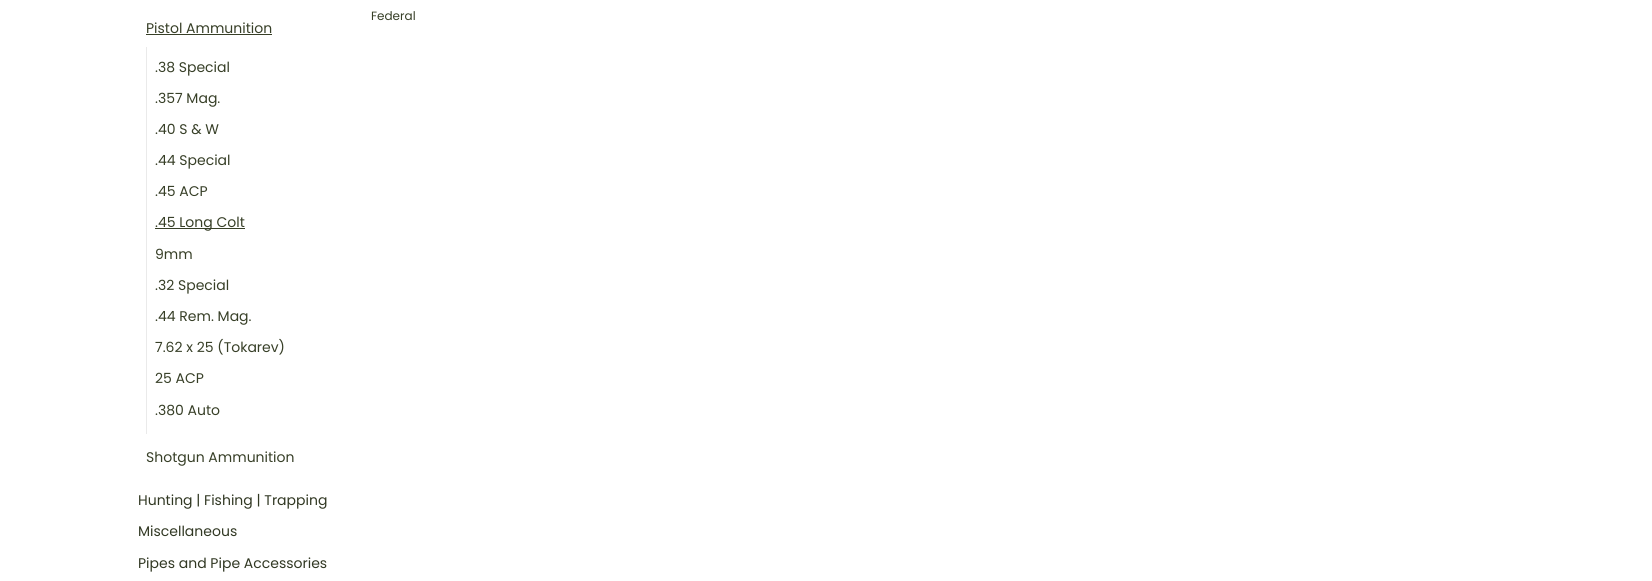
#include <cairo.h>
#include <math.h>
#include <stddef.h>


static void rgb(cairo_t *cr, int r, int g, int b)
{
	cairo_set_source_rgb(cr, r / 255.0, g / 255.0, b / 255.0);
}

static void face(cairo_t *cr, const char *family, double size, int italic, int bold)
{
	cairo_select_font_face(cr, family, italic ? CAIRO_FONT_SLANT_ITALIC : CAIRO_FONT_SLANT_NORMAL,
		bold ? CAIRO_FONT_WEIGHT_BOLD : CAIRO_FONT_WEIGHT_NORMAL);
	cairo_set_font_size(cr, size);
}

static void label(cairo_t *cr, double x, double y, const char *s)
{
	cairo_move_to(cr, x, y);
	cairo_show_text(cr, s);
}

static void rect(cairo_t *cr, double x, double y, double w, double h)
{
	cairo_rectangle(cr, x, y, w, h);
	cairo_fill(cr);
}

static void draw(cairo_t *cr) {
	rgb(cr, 255, 255, 255);
	cairo_paint(cr);
	face(cr, "Poppins", 12, 0, 0);
	rgb(cr, 55, 63, 39);
	label(cr, 371, 20, "Federal");
	face(cr, "Poppins", 14, 0, 0);
	label(cr, 146, 33, "Pistol Ammunition");
	rect(cr, 146, 34, 126, 1);
	rgb(cr, 234, 234, 234);
	rect(cr, 146, 47, 1, 387);
	rgb(cr, 55, 63, 39);
	label(cr, 155, 72, ".38 Special");
	label(cr, 155, 103, ".357 Mag.");
	label(cr, 155, 134, ".40 S & W");
	label(cr, 155, 165, ".44 Special");
	label(cr, 155, 196, ".45 ACP");
	rect(cr, 155, 228, 90, 1);
	label(cr, 155, 227, ".45 Long Colt");
	label(cr, 155, 259, "9mm");
	label(cr, 155, 290, ".32 Special");
	label(cr, 155, 321, ".44 Rem. Mag.");
	label(cr, 155, 352, "7.62 x 25 (Tokarev)");
	label(cr, 155, 383, "25 ACP");
	label(cr, 155, 415, ".380 Auto");
	label(cr, 146, 462, "Shotgun Ammunition");
	rgb(cr, 49, 56, 35);
	label(cr, 138, 505, "Hunting | Fishing | Trapping");
	label(cr, 138, 536, "Miscellaneous");
	label(cr, 138, 568, "Pipes and Pipe Accessories");
}

int main(void) {
	cairo_surface_t *surface = cairo_image_surface_create(CAIRO_FORMAT_RGB24, 1652, 581);
	cairo_t *cr = cairo_create(surface);
	cairo_font_options_t *options = cairo_font_options_create();
	cairo_font_options_set_hint_metrics(options, CAIRO_HINT_METRICS_OFF);
	cairo_font_options_set_hint_style(options, CAIRO_HINT_STYLE_NONE);
	cairo_set_font_options(cr, options);
	cairo_set_miter_limit(cr, 4);
	draw(cr);
	cairo_surface_write_to_png(surface, "render.png");
	cairo_font_options_destroy(options);
	cairo_destroy(cr);
	cairo_surface_destroy(surface);
	return 0;
}
